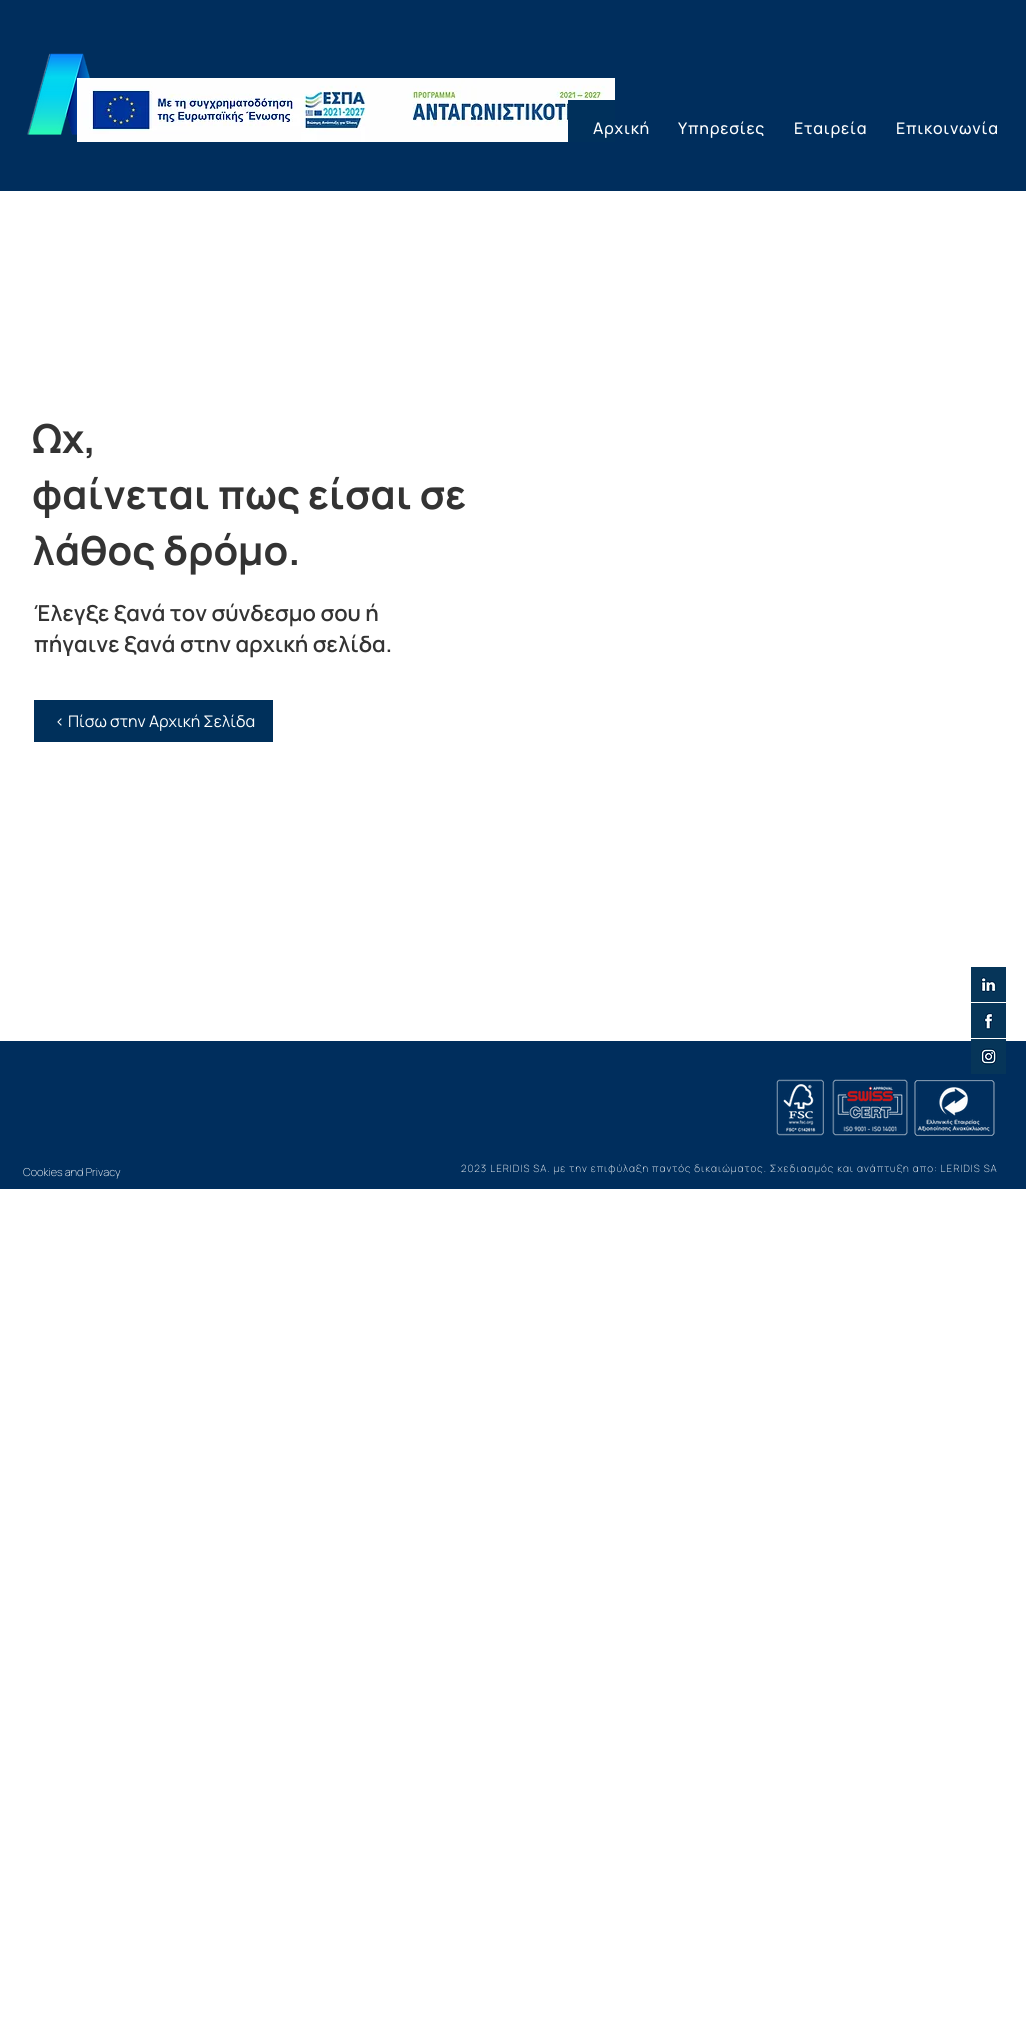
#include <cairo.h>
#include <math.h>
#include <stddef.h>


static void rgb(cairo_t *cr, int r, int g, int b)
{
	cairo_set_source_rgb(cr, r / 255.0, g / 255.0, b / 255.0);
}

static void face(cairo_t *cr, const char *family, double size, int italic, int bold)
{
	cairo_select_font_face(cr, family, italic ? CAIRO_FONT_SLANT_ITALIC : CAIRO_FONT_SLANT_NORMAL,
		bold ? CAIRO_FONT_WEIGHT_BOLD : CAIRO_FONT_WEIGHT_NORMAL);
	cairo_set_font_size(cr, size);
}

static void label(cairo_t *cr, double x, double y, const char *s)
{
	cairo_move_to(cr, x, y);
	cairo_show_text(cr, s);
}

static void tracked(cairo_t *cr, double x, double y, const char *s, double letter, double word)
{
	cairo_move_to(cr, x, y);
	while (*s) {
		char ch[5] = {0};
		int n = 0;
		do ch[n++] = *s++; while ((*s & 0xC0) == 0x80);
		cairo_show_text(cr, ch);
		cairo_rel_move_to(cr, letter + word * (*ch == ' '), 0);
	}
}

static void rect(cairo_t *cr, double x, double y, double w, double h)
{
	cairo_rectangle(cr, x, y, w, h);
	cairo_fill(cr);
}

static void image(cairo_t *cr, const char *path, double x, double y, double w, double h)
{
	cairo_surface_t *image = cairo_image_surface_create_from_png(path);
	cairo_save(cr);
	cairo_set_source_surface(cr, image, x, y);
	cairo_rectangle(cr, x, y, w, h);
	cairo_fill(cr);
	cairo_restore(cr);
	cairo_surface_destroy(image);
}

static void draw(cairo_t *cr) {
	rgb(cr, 255, 255, 255);
	cairo_paint(cr);
	rgb(cr, 0, 46, 93);
	rect(cr, 0, 0, 1026, 191);
	image(cr, "image0.png", 27, 53, 63, 82);
	image(cr, "image1.png", 77, 78, 538, 64);
	rgb(cr, 0, 48, 91);
	rect(cr, 568, 100, 47, 42);
	face(cr, "Manrope Medium", 16, 0, 0);
	rgb(cr, 255, 255, 255);
	tracked(cr, 593, 134, "Αρχική", 0.75, 0);
	tracked(cr, 678, 134, "Υπηρεσίες", 0.75, 0);
	tracked(cr, 794, 134, "Eταιρεία", 0.75, 0);
	tracked(cr, 896, 134, "Επικοινωνία", 0.75, 0);
	face(cr, "Manrope", 40, 0, 1);
	rgb(cr, 51, 51, 51);
	label(cr, 32, 453, "Ωχ,");
	label(cr, 32, 509, "φαίνεται πως είσαι σε");
	label(cr, 32, 565, "λάθος δρόμο.");
	face(cr, "Manrope SemiBold", 22, 0, 0);
	label(cr, 34, 621, "Έλεγξε ξανά τον σύνδεσμο σου ή");
	label(cr, 34, 652, "πήγαινε ξανά στην αρχική σελίδα.");
	rgb(cr, 0, 48, 91);
	rect(cr, 34, 700, 239, 42);
	face(cr, "Manrope", 16, 0, 0);
	rgb(cr, 255, 255, 255);
	label(cr, 55, 727, "< Πίσω στην Αρχική Σελίδα");
	image(cr, "image2.png", 971, 967, 35, 35);
	image(cr, "image3.png", 971, 1003, 35, 35);
	rgb(cr, 0, 46, 93);
	rect(cr, 0, 1041, 1026, 148);
	image(cr, "image4.png", 971, 1039, 35, 35);
	image(cr, "image5.png", 776, 1079, 48, 57);
	image(cr, "image6.png", 832, 1079, 76, 57);
	image(cr, "image7.png", 914, 1080, 81, 56);
	face(cr, "Manrope ExtraLight", 11, 0, 0);
	rgb(cr, 255, 255, 255);
	label(cr, 23, 1176, "Cookies and Privacy");
	face(cr, "Manrope ExtraLight", 10, 0, 0);
	tracked(cr, 461, 1172, "2023 LERIDIS SA. με την επιφύλαξη παντός δικαιώματος. Σχεδιασμός και ανάπτυξη απο: LERIDIS SA", 1, 0);
}

int main(void) {
	cairo_surface_t *surface = cairo_image_surface_create(CAIRO_FORMAT_RGB24, 1026, 2041);
	cairo_t *cr = cairo_create(surface);
	cairo_font_options_t *options = cairo_font_options_create();
	cairo_font_options_set_hint_metrics(options, CAIRO_HINT_METRICS_OFF);
	cairo_font_options_set_hint_style(options, CAIRO_HINT_STYLE_NONE);
	cairo_set_font_options(cr, options);
	cairo_set_miter_limit(cr, 4);
	draw(cr);
	cairo_surface_write_to_png(surface, "render.png");
	cairo_font_options_destroy(options);
	cairo_destroy(cr);
	cairo_surface_destroy(surface);
	return 0;
}
